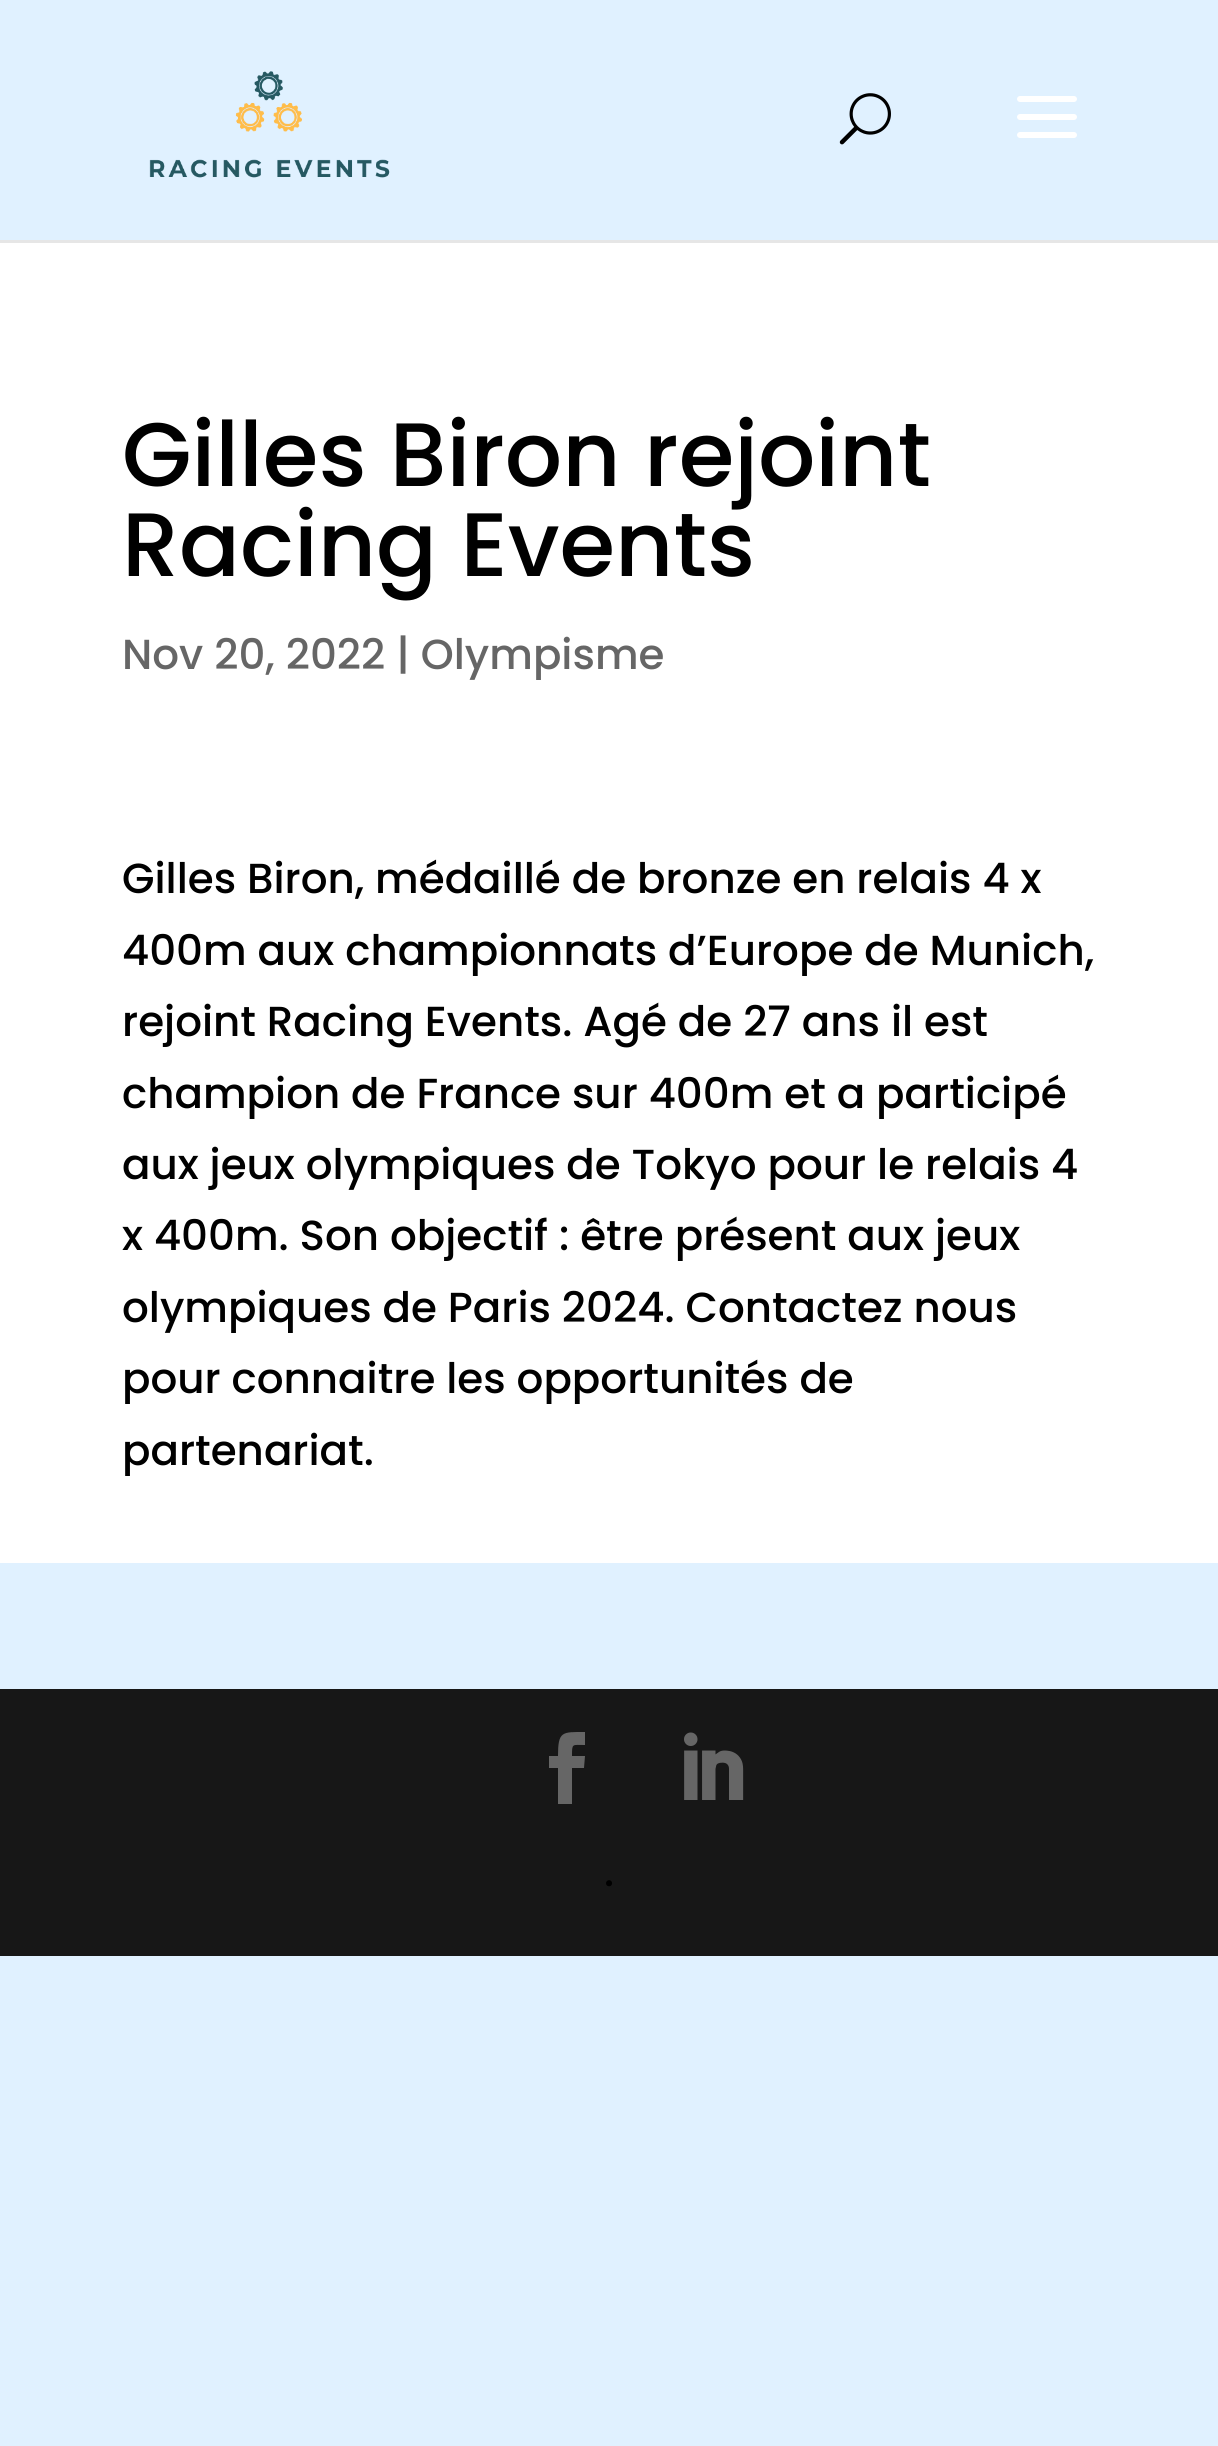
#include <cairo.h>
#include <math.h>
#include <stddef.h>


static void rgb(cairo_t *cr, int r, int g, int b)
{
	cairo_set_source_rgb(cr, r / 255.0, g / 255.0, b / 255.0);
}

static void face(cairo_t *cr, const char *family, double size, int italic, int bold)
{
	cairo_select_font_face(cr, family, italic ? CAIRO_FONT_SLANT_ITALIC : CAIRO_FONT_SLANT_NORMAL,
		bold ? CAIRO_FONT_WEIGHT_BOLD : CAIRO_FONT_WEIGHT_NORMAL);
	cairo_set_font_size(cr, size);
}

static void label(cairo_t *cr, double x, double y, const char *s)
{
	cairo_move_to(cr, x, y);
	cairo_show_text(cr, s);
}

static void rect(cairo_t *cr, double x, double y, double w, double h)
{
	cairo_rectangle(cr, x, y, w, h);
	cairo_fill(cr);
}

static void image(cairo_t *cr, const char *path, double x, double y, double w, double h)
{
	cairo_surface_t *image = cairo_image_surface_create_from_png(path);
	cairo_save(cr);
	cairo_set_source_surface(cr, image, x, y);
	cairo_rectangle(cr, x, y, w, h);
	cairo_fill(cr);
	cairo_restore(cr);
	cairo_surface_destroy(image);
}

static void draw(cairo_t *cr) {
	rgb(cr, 224, 241, 255);
	cairo_paint(cr);
	rgb(cr, 230, 230, 230);
	rect(cr, 0, 240, 1218, 3);
	image(cr, "image0.png", 149, 71, 241, 107);
	image(cr, "image1.png", 839, 93, 52, 52);
	image(cr, "image2.png", 1017, 96, 60, 42);
	rgb(cr, 255, 255, 255);
	rect(cr, 0, 243, 1218, 1320);
	face(cr, "Poppins Medium", 90, 0, 0);
	rgb(cr, 0, 0, 0);
	label(cr, 122, 486, "Gilles Biron rejoint");
	label(cr, 122, 576, "Racing Events");
	face(cr, "Poppins Medium", 42, 0, 0);
	rgb(cr, 102, 102, 102);
	label(cr, 122, 669, "Nov 20, 2022 | Olympisme");
	rgb(cr, 0, 0, 0);
	label(cr, 122, 893, "Gilles Biron, médaillé de bronze en relais 4 x");
	label(cr, 122, 965, "400m aux championnats d’Europe de Munich,");
	label(cr, 122, 1036, "rejoint Racing Events. Agé de 27 ans il est");
	label(cr, 122, 1108, "champion de France sur 400m et a participé");
	label(cr, 122, 1179, "aux jeux olympiques de Tokyo pour le relais 4");
	label(cr, 122, 1250, "x 400m. Son objectif : être présent aux jeux");
	label(cr, 122, 1322, "olympiques de Paris 2024. Contactez nous");
	label(cr, 122, 1393, "pour connaitre les opportunités de");
	label(cr, 122, 1465, "partenariat.");
	rgb(cr, 23, 23, 23);
	rect(cr, 0, 1689, 1218, 267);
	rgb(cr, 102, 102, 102);
	cairo_new_path(cr);
	cairo_move_to(cr, 558, 1804);
	cairo_line_to(cr, 572, 1804);
	cairo_line_to(cr, 572, 1768);
	cairo_line_to(cr, 584, 1768);
	cairo_line_to(cr, 585, 1756);
	cairo_line_to(cr, 572, 1756);
	cairo_curve_to(cr, 572, 1743, 572, 1745, 585, 1745);
	cairo_line_to(cr, 585, 1732);
	cairo_curve_to(cr, 562, 1732, 558, 1731, 558, 1756);
	cairo_line_to(cr, 549, 1756);
	cairo_line_to(cr, 549, 1768);
	cairo_line_to(cr, 558, 1768);
	cairo_close_path(cr);
	cairo_fill(cr);
	image(cr, "image3.png", 684, 1732, 60, 68);
	rgb(cr, 0, 0, 0);
	label(cr, 604, 1886, ".");
}

int main(void) {
	cairo_surface_t *surface = cairo_image_surface_create(CAIRO_FORMAT_RGB24, 1218, 2446);
	cairo_t *cr = cairo_create(surface);
	cairo_font_options_t *options = cairo_font_options_create();
	cairo_font_options_set_hint_metrics(options, CAIRO_HINT_METRICS_OFF);
	cairo_font_options_set_hint_style(options, CAIRO_HINT_STYLE_NONE);
	cairo_set_font_options(cr, options);
	cairo_set_miter_limit(cr, 4);
	draw(cr);
	cairo_surface_write_to_png(surface, "render.png");
	cairo_font_options_destroy(options);
	cairo_destroy(cr);
	cairo_surface_destroy(surface);
	return 0;
}
